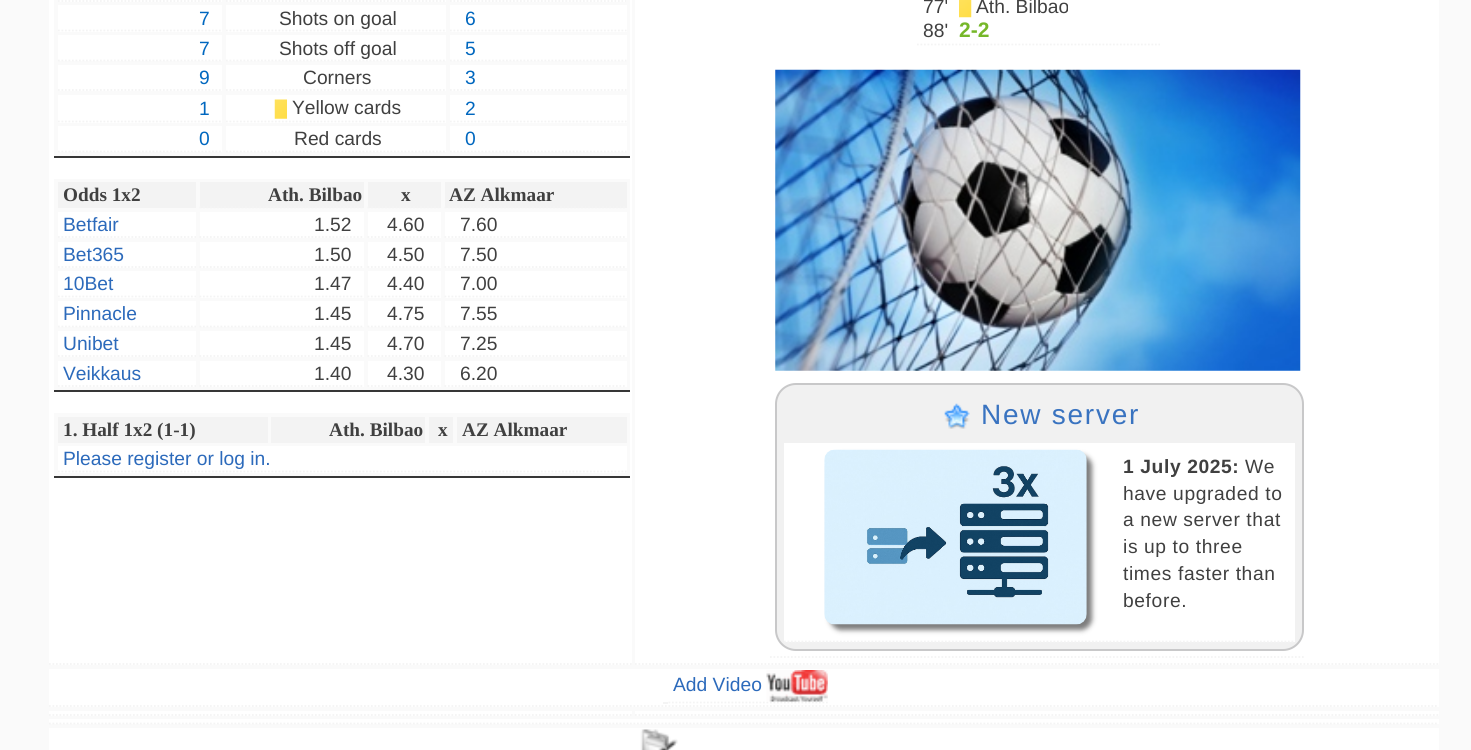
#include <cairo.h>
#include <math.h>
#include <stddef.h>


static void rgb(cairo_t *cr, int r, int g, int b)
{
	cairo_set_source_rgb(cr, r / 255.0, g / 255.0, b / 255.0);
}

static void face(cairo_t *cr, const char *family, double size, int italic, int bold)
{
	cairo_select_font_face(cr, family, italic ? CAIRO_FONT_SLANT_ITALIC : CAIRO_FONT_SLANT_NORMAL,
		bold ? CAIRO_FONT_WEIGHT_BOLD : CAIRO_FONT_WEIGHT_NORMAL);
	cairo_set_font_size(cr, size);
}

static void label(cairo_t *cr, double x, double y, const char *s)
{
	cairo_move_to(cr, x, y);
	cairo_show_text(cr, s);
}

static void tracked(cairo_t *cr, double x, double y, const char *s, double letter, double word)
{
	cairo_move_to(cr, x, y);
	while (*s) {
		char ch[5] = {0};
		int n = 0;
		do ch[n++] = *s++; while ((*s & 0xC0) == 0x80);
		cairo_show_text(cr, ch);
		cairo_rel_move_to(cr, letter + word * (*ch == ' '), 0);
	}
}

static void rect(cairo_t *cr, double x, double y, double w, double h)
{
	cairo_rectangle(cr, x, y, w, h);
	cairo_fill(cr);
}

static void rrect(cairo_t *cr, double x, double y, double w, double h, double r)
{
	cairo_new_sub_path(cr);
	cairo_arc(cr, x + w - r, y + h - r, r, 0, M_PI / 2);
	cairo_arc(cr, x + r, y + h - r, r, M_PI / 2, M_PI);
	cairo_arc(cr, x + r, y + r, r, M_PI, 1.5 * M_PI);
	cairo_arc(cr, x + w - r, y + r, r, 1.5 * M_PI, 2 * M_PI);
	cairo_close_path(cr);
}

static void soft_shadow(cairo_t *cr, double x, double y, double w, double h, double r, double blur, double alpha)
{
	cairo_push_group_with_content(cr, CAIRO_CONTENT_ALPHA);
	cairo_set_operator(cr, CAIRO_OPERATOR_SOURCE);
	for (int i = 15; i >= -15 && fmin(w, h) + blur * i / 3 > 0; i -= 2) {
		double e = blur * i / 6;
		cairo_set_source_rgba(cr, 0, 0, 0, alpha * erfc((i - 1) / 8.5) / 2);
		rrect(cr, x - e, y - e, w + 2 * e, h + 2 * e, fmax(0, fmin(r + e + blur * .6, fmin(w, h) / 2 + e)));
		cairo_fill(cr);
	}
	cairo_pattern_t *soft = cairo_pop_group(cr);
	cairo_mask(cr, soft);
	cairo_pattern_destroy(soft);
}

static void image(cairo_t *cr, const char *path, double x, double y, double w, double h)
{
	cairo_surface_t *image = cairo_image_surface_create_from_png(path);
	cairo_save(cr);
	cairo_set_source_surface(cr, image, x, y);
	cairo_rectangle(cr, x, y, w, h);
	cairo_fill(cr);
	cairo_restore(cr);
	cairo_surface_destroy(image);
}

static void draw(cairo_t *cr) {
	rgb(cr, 250, 250, 250);
	cairo_paint(cr);
	rgb(cr, 255, 255, 255);
	rect(cr, 49, 0, 583, 665);
	cairo_new_path(cr);
	cairo_move_to(cr, 49, 664);
	cairo_line_to(cr, 632, 664);
	rgb(cr, 244, 244, 244);
	cairo_set_line_width(cr, 1.8);
	cairo_set_dash(cr, (double[]){1.75, 1.75}, 2, 0);
	cairo_stroke(cr);
	rgb(cr, 250, 250, 250);
	rect(cr, 54, 0, 576, 156);
	rgb(cr, 54, 54, 54);
	rect(cr, 54, 156, 576, 2);
	rgb(cr, 255, 255, 255);
	rect(cr, 58, 0, 164, 2);
	cairo_new_path(cr);
	cairo_move_to(cr, 58, 1);
	cairo_line_to(cr, 222, 1);
	rgb(cr, 244, 244, 244);
	cairo_stroke(cr);
	rgb(cr, 255, 255, 255);
	rect(cr, 226, 0, 220, 2);
	cairo_new_path(cr);
	cairo_move_to(cr, 226, 1);
	cairo_line_to(cr, 446, 1);
	rgb(cr, 244, 244, 244);
	cairo_stroke(cr);
	rgb(cr, 255, 255, 255);
	rect(cr, 450, 0, 177, 2);
	cairo_new_path(cr);
	cairo_move_to(cr, 450, 1);
	cairo_line_to(cr, 626.5, 1);
	rgb(cr, 244, 244, 244);
	cairo_stroke(cr);
	rgb(cr, 255, 255, 255);
	rect(cr, 58, 5, 164, 27);
	cairo_new_path(cr);
	cairo_move_to(cr, 58, 30.5);
	cairo_line_to(cr, 222, 30.5);
	rgb(cr, 244, 244, 244);
	cairo_stroke(cr);
	face(cr, "Liberation Sans", 19.25, 0, 0);
	rgb(cr, 0, 103, 191);
	label(cr, 199, 25, "7");
	rgb(cr, 255, 255, 255);
	rect(cr, 226, 5, 220, 27);
	cairo_new_path(cr);
	cairo_move_to(cr, 226, 30.5);
	cairo_line_to(cr, 446, 30.5);
	rgb(cr, 244, 244, 244);
	cairo_stroke(cr);
	rgb(cr, 64, 64, 64);
	label(cr, 279, 25, "Shots on goal");
	rgb(cr, 255, 255, 255);
	rect(cr, 450, 5, 177, 27);
	cairo_new_path(cr);
	cairo_move_to(cr, 450, 30.5);
	cairo_line_to(cr, 626.5, 30.5);
	rgb(cr, 244, 244, 244);
	cairo_stroke(cr);
	rgb(cr, 0, 103, 191);
	label(cr, 465, 25, "6");
	rgb(cr, 255, 255, 255);
	rect(cr, 58, 35, 164, 26);
	cairo_new_path(cr);
	cairo_move_to(cr, 58, 60.5);
	cairo_line_to(cr, 222, 60.5);
	rgb(cr, 244, 244, 244);
	cairo_stroke(cr);
	rgb(cr, 0, 103, 191);
	label(cr, 199, 55, "7");
	rgb(cr, 255, 255, 255);
	rect(cr, 226, 35, 220, 26);
	cairo_new_path(cr);
	cairo_move_to(cr, 226, 60.5);
	cairo_line_to(cr, 446, 60.5);
	rgb(cr, 244, 244, 244);
	cairo_stroke(cr);
	rgb(cr, 64, 64, 64);
	label(cr, 279, 55, "Shots off goal");
	rgb(cr, 255, 255, 255);
	rect(cr, 450, 35, 177, 26);
	cairo_new_path(cr);
	cairo_move_to(cr, 450, 60.5);
	cairo_line_to(cr, 626.5, 60.5);
	rgb(cr, 244, 244, 244);
	cairo_stroke(cr);
	rgb(cr, 0, 103, 191);
	label(cr, 465, 55, "5");
	rgb(cr, 255, 255, 255);
	rect(cr, 58, 65, 164, 26);
	cairo_new_path(cr);
	cairo_move_to(cr, 58, 90);
	cairo_line_to(cr, 222, 90);
	rgb(cr, 244, 244, 244);
	cairo_stroke(cr);
	rgb(cr, 0, 103, 191);
	label(cr, 199, 84, "9");
	rgb(cr, 255, 255, 255);
	rect(cr, 226, 65, 220, 26);
	cairo_new_path(cr);
	cairo_move_to(cr, 226, 90);
	cairo_line_to(cr, 446, 90);
	rgb(cr, 244, 244, 244);
	cairo_stroke(cr);
	rgb(cr, 64, 64, 64);
	label(cr, 303, 84, "Corners");
	rgb(cr, 255, 255, 255);
	rect(cr, 450, 65, 177, 26);
	cairo_new_path(cr);
	cairo_move_to(cr, 450, 90);
	cairo_line_to(cr, 626.5, 90);
	rgb(cr, 244, 244, 244);
	cairo_stroke(cr);
	rgb(cr, 0, 103, 191);
	label(cr, 465, 84, "3");
	rgb(cr, 255, 255, 255);
	rect(cr, 58, 95, 164, 28);
	cairo_new_path(cr);
	cairo_move_to(cr, 58, 121.5);
	cairo_line_to(cr, 222, 121.5);
	rgb(cr, 244, 244, 244);
	cairo_stroke(cr);
	rgb(cr, 0, 103, 191);
	label(cr, 199, 115, "1");
	rgb(cr, 255, 255, 255);
	rect(cr, 226, 95, 220, 28);
	cairo_new_path(cr);
	cairo_move_to(cr, 226, 121.5);
	cairo_line_to(cr, 446, 121.5);
	rgb(cr, 244, 244, 244);
	cairo_stroke(cr);
	image(cr, "image0.png", 274, 99, 13, 20);
	rgb(cr, 64, 64, 64);
	label(cr, 292, 114, "Yellow cards");
	rgb(cr, 255, 255, 255);
	rect(cr, 450, 95, 177, 28);
	cairo_new_path(cr);
	cairo_move_to(cr, 450, 121.5);
	cairo_line_to(cr, 626.5, 121.5);
	rgb(cr, 244, 244, 244);
	cairo_stroke(cr);
	rgb(cr, 0, 103, 191);
	label(cr, 465, 115, "2");
	rgb(cr, 255, 255, 255);
	rect(cr, 58, 126, 164, 26);
	cairo_new_path(cr);
	cairo_move_to(cr, 58, 151.5);
	cairo_line_to(cr, 222, 151.5);
	rgb(cr, 244, 244, 244);
	cairo_stroke(cr);
	rgb(cr, 0, 103, 191);
	label(cr, 199, 145, "0");
	rgb(cr, 255, 255, 255);
	rect(cr, 226, 126, 220, 26);
	cairo_new_path(cr);
	cairo_move_to(cr, 226, 151.5);
	cairo_line_to(cr, 446, 151.5);
	rgb(cr, 244, 244, 244);
	cairo_stroke(cr);
	rgb(cr, 64, 64, 64);
	label(cr, 294, 145, "Red cards");
	rgb(cr, 255, 255, 255);
	rect(cr, 450, 126, 177, 26);
	cairo_new_path(cr);
	cairo_move_to(cr, 450, 151.5);
	cairo_line_to(cr, 626.5, 151.5);
	rgb(cr, 244, 244, 244);
	cairo_stroke(cr);
	rgb(cr, 0, 103, 191);
	label(cr, 465, 145, "0");
	rgb(cr, 250, 250, 250);
	rect(cr, 54, 179, 576, 211);
	rgb(cr, 54, 54, 54);
	rect(cr, 54, 390, 576, 2);
	rgb(cr, 243, 243, 243);
	rect(cr, 58, 182, 138, 26);
	face(cr, "Liberation Serif", 19.25, 0, 1);
	rgb(cr, 64, 64, 64);
	label(cr, 63, 201, "Odds 1x2");
	rgb(cr, 243, 243, 243);
	rect(cr, 200, 182, 164, 26);
	cairo_new_path(cr);
	cairo_move_to(cr, 199.5, 207.5);
	cairo_line_to(cr, 364, 207.5);
	rgb(cr, 244, 244, 244);
	cairo_stroke(cr);
	rgb(cr, 64, 64, 64);
	label(cr, 268, 201, "Ath. Bilbao");
	rgb(cr, 243, 243, 243);
	rect(cr, 368, 182, 73, 26);
	cairo_new_path(cr);
	cairo_move_to(cr, 367.5, 207.5);
	cairo_line_to(cr, 441, 207.5);
	rgb(cr, 244, 244, 244);
	cairo_stroke(cr);
	rgb(cr, 64, 64, 64);
	label(cr, 401, 201, "x");
	rgb(cr, 243, 243, 243);
	rect(cr, 445, 182, 182, 26);
	cairo_new_path(cr);
	cairo_move_to(cr, 444.5, 207.5);
	cairo_line_to(cr, 626.5, 207.5);
	rgb(cr, 244, 244, 244);
	cairo_stroke(cr);
	rgb(cr, 64, 64, 64);
	label(cr, 449, 201, "AZ Alkmaar");
	rgb(cr, 255, 255, 255);
	rect(cr, 58, 212, 138, 26);
	cairo_new_path(cr);
	cairo_move_to(cr, 58, 237);
	cairo_line_to(cr, 196, 237);
	rgb(cr, 244, 244, 244);
	cairo_stroke(cr);
	face(cr, "Liberation Sans", 19.25, 0, 0);
	rgb(cr, 44, 106, 187);
	label(cr, 63, 231, "Betfair");
	rgb(cr, 255, 255, 255);
	rect(cr, 200, 212, 164, 26);
	cairo_new_path(cr);
	cairo_move_to(cr, 199.5, 237);
	cairo_line_to(cr, 364, 237);
	rgb(cr, 244, 244, 244);
	cairo_stroke(cr);
	rgb(cr, 64, 64, 64);
	label(cr, 314, 231, "1.52");
	rgb(cr, 255, 255, 255);
	rect(cr, 368, 212, 73, 26);
	cairo_new_path(cr);
	cairo_move_to(cr, 367.5, 237);
	cairo_line_to(cr, 441, 237);
	rgb(cr, 244, 244, 244);
	cairo_stroke(cr);
	rgb(cr, 64, 64, 64);
	label(cr, 387, 231, "4.60");
	rgb(cr, 255, 255, 255);
	rect(cr, 445, 212, 182, 26);
	cairo_new_path(cr);
	cairo_move_to(cr, 444.5, 237);
	cairo_line_to(cr, 626.5, 237);
	rgb(cr, 244, 244, 244);
	cairo_stroke(cr);
	rgb(cr, 64, 64, 64);
	label(cr, 460, 231, "7.60");
	rgb(cr, 255, 255, 255);
	rect(cr, 58, 242, 138, 26);
	cairo_new_path(cr);
	cairo_move_to(cr, 58, 267);
	cairo_line_to(cr, 196, 267);
	rgb(cr, 244, 244, 244);
	cairo_stroke(cr);
	rgb(cr, 44, 106, 187);
	label(cr, 63, 261, "Bet365");
	rgb(cr, 255, 255, 255);
	rect(cr, 200, 242, 164, 26);
	cairo_new_path(cr);
	cairo_move_to(cr, 199.5, 267);
	cairo_line_to(cr, 364, 267);
	rgb(cr, 244, 244, 244);
	cairo_stroke(cr);
	rgb(cr, 64, 64, 64);
	label(cr, 314, 261, "1.50");
	rgb(cr, 255, 255, 255);
	rect(cr, 368, 242, 73, 26);
	cairo_new_path(cr);
	cairo_move_to(cr, 367.5, 267);
	cairo_line_to(cr, 441, 267);
	rgb(cr, 244, 244, 244);
	cairo_stroke(cr);
	rgb(cr, 64, 64, 64);
	label(cr, 387, 261, "4.50");
	rgb(cr, 255, 255, 255);
	rect(cr, 445, 242, 182, 26);
	cairo_new_path(cr);
	cairo_move_to(cr, 444.5, 267);
	cairo_line_to(cr, 626.5, 267);
	rgb(cr, 244, 244, 244);
	cairo_stroke(cr);
	rgb(cr, 64, 64, 64);
	label(cr, 460, 261, "7.50");
	rgb(cr, 255, 255, 255);
	rect(cr, 58, 271, 138, 27);
	cairo_new_path(cr);
	cairo_move_to(cr, 58, 296.5);
	cairo_line_to(cr, 196, 296.5);
	rgb(cr, 244, 244, 244);
	cairo_stroke(cr);
	rgb(cr, 44, 106, 187);
	label(cr, 63, 290, "10Bet");
	rgb(cr, 255, 255, 255);
	rect(cr, 200, 271, 164, 27);
	cairo_new_path(cr);
	cairo_move_to(cr, 199.5, 296.5);
	cairo_line_to(cr, 364, 296.5);
	rgb(cr, 244, 244, 244);
	cairo_stroke(cr);
	rgb(cr, 64, 64, 64);
	label(cr, 314, 290, "1.47");
	rgb(cr, 255, 255, 255);
	rect(cr, 368, 271, 73, 27);
	cairo_new_path(cr);
	cairo_move_to(cr, 367.5, 296.5);
	cairo_line_to(cr, 441, 296.5);
	rgb(cr, 244, 244, 244);
	cairo_stroke(cr);
	rgb(cr, 64, 64, 64);
	label(cr, 387, 290, "4.40");
	rgb(cr, 255, 255, 255);
	rect(cr, 445, 271, 182, 27);
	cairo_new_path(cr);
	cairo_move_to(cr, 444.5, 296.5);
	cairo_line_to(cr, 626.5, 296.5);
	rgb(cr, 244, 244, 244);
	cairo_stroke(cr);
	rgb(cr, 64, 64, 64);
	label(cr, 460, 290, "7.00");
	rgb(cr, 255, 255, 255);
	rect(cr, 58, 301, 138, 26);
	cairo_new_path(cr);
	cairo_move_to(cr, 58, 326.5);
	cairo_line_to(cr, 196, 326.5);
	rgb(cr, 244, 244, 244);
	cairo_stroke(cr);
	rgb(cr, 44, 106, 187);
	label(cr, 63, 320, "Pinnacle");
	rgb(cr, 255, 255, 255);
	rect(cr, 200, 301, 164, 26);
	cairo_new_path(cr);
	cairo_move_to(cr, 199.5, 326.5);
	cairo_line_to(cr, 364, 326.5);
	rgb(cr, 244, 244, 244);
	cairo_stroke(cr);
	rgb(cr, 64, 64, 64);
	label(cr, 314, 320, "1.45");
	rgb(cr, 255, 255, 255);
	rect(cr, 368, 301, 73, 26);
	cairo_new_path(cr);
	cairo_move_to(cr, 367.5, 326.5);
	cairo_line_to(cr, 441, 326.5);
	rgb(cr, 244, 244, 244);
	cairo_stroke(cr);
	rgb(cr, 64, 64, 64);
	label(cr, 387, 320, "4.75");
	rgb(cr, 255, 255, 255);
	rect(cr, 445, 301, 182, 26);
	cairo_new_path(cr);
	cairo_move_to(cr, 444.5, 326.5);
	cairo_line_to(cr, 626.5, 326.5);
	rgb(cr, 244, 244, 244);
	cairo_stroke(cr);
	rgb(cr, 64, 64, 64);
	label(cr, 460, 320, "7.55");
	rgb(cr, 255, 255, 255);
	rect(cr, 58, 331, 138, 26);
	cairo_new_path(cr);
	cairo_move_to(cr, 58, 356);
	cairo_line_to(cr, 196, 356);
	rgb(cr, 244, 244, 244);
	cairo_stroke(cr);
	rgb(cr, 44, 106, 187);
	label(cr, 63, 350, "Unibet");
	rgb(cr, 255, 255, 255);
	rect(cr, 200, 331, 164, 26);
	cairo_new_path(cr);
	cairo_move_to(cr, 199.5, 356);
	cairo_line_to(cr, 364, 356);
	rgb(cr, 244, 244, 244);
	cairo_stroke(cr);
	rgb(cr, 64, 64, 64);
	label(cr, 314, 350, "1.45");
	rgb(cr, 255, 255, 255);
	rect(cr, 368, 331, 73, 26);
	cairo_new_path(cr);
	cairo_move_to(cr, 367.5, 356);
	cairo_line_to(cr, 441, 356);
	rgb(cr, 244, 244, 244);
	cairo_stroke(cr);
	rgb(cr, 64, 64, 64);
	label(cr, 387, 350, "4.70");
	rgb(cr, 255, 255, 255);
	rect(cr, 445, 331, 182, 26);
	cairo_new_path(cr);
	cairo_move_to(cr, 444.5, 356);
	cairo_line_to(cr, 626.5, 356);
	rgb(cr, 244, 244, 244);
	cairo_stroke(cr);
	rgb(cr, 64, 64, 64);
	label(cr, 460, 350, "7.25");
	rgb(cr, 255, 255, 255);
	rect(cr, 58, 361, 138, 26);
	cairo_new_path(cr);
	cairo_move_to(cr, 58, 386);
	cairo_line_to(cr, 196, 386);
	rgb(cr, 244, 244, 244);
	cairo_stroke(cr);
	rgb(cr, 44, 106, 187);
	label(cr, 63, 380, "Veikkaus");
	rgb(cr, 255, 255, 255);
	rect(cr, 200, 361, 164, 26);
	cairo_new_path(cr);
	cairo_move_to(cr, 199.5, 386);
	cairo_line_to(cr, 364, 386);
	rgb(cr, 244, 244, 244);
	cairo_stroke(cr);
	rgb(cr, 64, 64, 64);
	label(cr, 314, 380, "1.40");
	rgb(cr, 255, 255, 255);
	rect(cr, 368, 361, 73, 26);
	cairo_new_path(cr);
	cairo_move_to(cr, 367.5, 386);
	cairo_line_to(cr, 441, 386);
	rgb(cr, 244, 244, 244);
	cairo_stroke(cr);
	rgb(cr, 64, 64, 64);
	label(cr, 387, 380, "4.30");
	rgb(cr, 255, 255, 255);
	rect(cr, 445, 361, 182, 26);
	cairo_new_path(cr);
	cairo_move_to(cr, 444.5, 386);
	cairo_line_to(cr, 626.5, 386);
	rgb(cr, 244, 244, 244);
	cairo_stroke(cr);
	rgb(cr, 64, 64, 64);
	label(cr, 460, 380, "6.20");
	rgb(cr, 250, 250, 250);
	rect(cr, 54, 413, 576, 63);
	rgb(cr, 54, 54, 54);
	rect(cr, 54, 476, 576, 2);
	rgb(cr, 243, 243, 243);
	rect(cr, 58, 417, 210, 26);
	face(cr, "Liberation Serif", 19.25, 0, 1);
	rgb(cr, 64, 64, 64);
	label(cr, 63, 436, "1. Half 1x2 (1-1)");
	rgb(cr, 243, 243, 243);
	rect(cr, 271, 417, 154, 26);
	rgb(cr, 64, 64, 64);
	label(cr, 329, 436, "Ath. Bilbao");
	rgb(cr, 243, 243, 243);
	rect(cr, 429, 417, 24, 26);
	rgb(cr, 64, 64, 64);
	label(cr, 438, 436, "x");
	rgb(cr, 243, 243, 243);
	rect(cr, 457, 417, 170, 26);
	rgb(cr, 64, 64, 64);
	label(cr, 462, 436, "AZ Alkmaar");
	rgb(cr, 255, 255, 255);
	rect(cr, 58, 446, 569, 27);
	cairo_new_path(cr);
	cairo_move_to(cr, 58, 471.5);
	cairo_line_to(cr, 626.5, 471.5);
	rgb(cr, 244, 244, 244);
	cairo_stroke(cr);
	face(cr, "Liberation Sans", 19.25, 0, 0);
	rgb(cr, 44, 106, 187);
	label(cr, 63, 465, "Please register or log in.");
	rgb(cr, 255, 255, 255);
	rect(cr, 635, 0, 804, 665);
	cairo_new_path(cr);
	cairo_move_to(cr, 635, 664);
	cairo_line_to(cr, 1438.5, 664);
	rgb(cr, 244, 244, 244);
	cairo_stroke(cr);
	cairo_new_path(cr);
	cairo_move_to(cr, 917, 44.5);
	cairo_line_to(cr, 1160, 44.5);
	cairo_stroke(cr);
	rgb(cr, 64, 64, 64);
	label(cr, 923, 13, "77'");
	image(cr, "image1.png", 959, 0, 13, 18);
	label(cr, 976, 13, "Ath. Bilbao");
	label(cr, 923, 37, "88'");
	face(cr, "Liberation Sans", 21, 0, 1);
	rgb(cr, 118, 183, 41);
	label(cr, 959, 37, "2-2");
	image(cr, "image2.png", 775, 69, 526, 302);
	cairo_new_path(cr);
	cairo_move_to(cr, 770, 657);
	cairo_line_to(cr, 1305.5, 657);
	rgb(cr, 244, 244, 244);
	cairo_stroke(cr);
	rgb(cr, 241, 241, 241);
	rrect(cr, 776, 384, 527, 266, 20);
	cairo_fill_preserve(cr);
	rgb(cr, 200, 200, 201);
	cairo_set_line_width(cr, 2);
	cairo_set_dash(cr, NULL, 0, 0);
	cairo_stroke(cr);
	image(cr, "image3.png", 944, 403, 26, 26);
	face(cr, "Liberation Sans", 28, 0, 0);
	rgb(cr, 57, 115, 192);
	tracked(cr, 981, 424, "New server", 1.75, 0);
	rgb(cr, 255, 255, 255);
	rect(cr, 784, 443, 511, 199);
	cairo_new_path(cr);
	cairo_move_to(cr, 784, 641.5);
	cairo_line_to(cr, 1295, 641.5);
	rgb(cr, 244, 244, 244);
	cairo_set_line_width(cr, 1.8);
	cairo_set_dash(cr, (double[]){1.75, 1.75}, 2, 0);
	cairo_stroke(cr);
	rgb(cr, 124, 124, 124);
	soft_shadow(cr, 830, 455, 262, 175, 11, 2.5, 1);
	image(cr, "image4.png", 824, 449, 263, 176);
	face(cr, "Liberation Sans", 19.25, 0, 1);
	rgb(cr, 64, 64, 64);
	tracked(cr, 1123, 473, "1 July 2025:", 0.6, 0);
	face(cr, "Liberation Sans", 19.25, 0, 0);
	tracked(cr, 1245, 473, "We", 0.6, 0);
	tracked(cr, 1123, 500, "have upgraded to", 0.6, 0);
	tracked(cr, 1123, 526, "a new server that", 0.6, 0);
	tracked(cr, 1123, 553, "is up to three", 0.6, 0);
	tracked(cr, 1123, 580, "times faster than", 0.6, 0);
	tracked(cr, 1123, 607, "before.", 0.6, 0);
	rgb(cr, 255, 255, 255);
	rect(cr, 49, 669, 1390, 38);
	cairo_new_path(cr);
	cairo_move_to(cr, 49, 706);
	cairo_line_to(cr, 1438.5, 706);
	rgb(cr, 244, 244, 244);
	cairo_stroke(cr);
	cairo_new_path(cr);
	cairo_move_to(cr, 668.5, 702.5);
	cairo_line_to(cr, 828, 702.5);
	cairo_stroke(cr);
	rgb(cr, 44, 106, 187);
	label(cr, 673, 691, "Add Video");
	image(cr, "image5.png", 766, 670, 62, 32);
	rgb(cr, 244, 244, 244);
	rect(cr, 663, 702, 5, 2);
	rgb(cr, 255, 255, 255);
	rect(cr, 49, 711, 583, 5);
	cairo_new_path(cr);
	cairo_move_to(cr, 49, 715);
	cairo_line_to(cr, 632, 715);
	rgb(cr, 244, 244, 244);
	cairo_stroke(cr);
	rgb(cr, 255, 255, 255);
	rect(cr, 635, 711, 804, 5);
	cairo_new_path(cr);
	cairo_move_to(cr, 635, 715);
	cairo_line_to(cr, 1438.5, 715);
	rgb(cr, 244, 244, 244);
	cairo_stroke(cr);
	rgb(cr, 255, 255, 255);
	rect(cr, 49, 719, 1390, 5);
	cairo_new_path(cr);
	cairo_move_to(cr, 49, 723.5);
	cairo_line_to(cr, 1438.5, 723.5);
	rgb(cr, 244, 244, 244);
	cairo_stroke(cr);
	rgb(cr, 255, 255, 255);
	rect(cr, 49, 728, 1390, 22);
	image(cr, "image6.png", 640, 729, 38, 21);
}

int main(void) {
	cairo_surface_t *surface = cairo_image_surface_create(CAIRO_FORMAT_RGB24, 1471, 750);
	cairo_t *cr = cairo_create(surface);
	cairo_font_options_t *options = cairo_font_options_create();
	cairo_font_options_set_hint_metrics(options, CAIRO_HINT_METRICS_OFF);
	cairo_font_options_set_hint_style(options, CAIRO_HINT_STYLE_NONE);
	cairo_set_font_options(cr, options);
	cairo_set_miter_limit(cr, 4);
	draw(cr);
	cairo_surface_write_to_png(surface, "render.png");
	cairo_font_options_destroy(options);
	cairo_destroy(cr);
	cairo_surface_destroy(surface);
	return 0;
}
